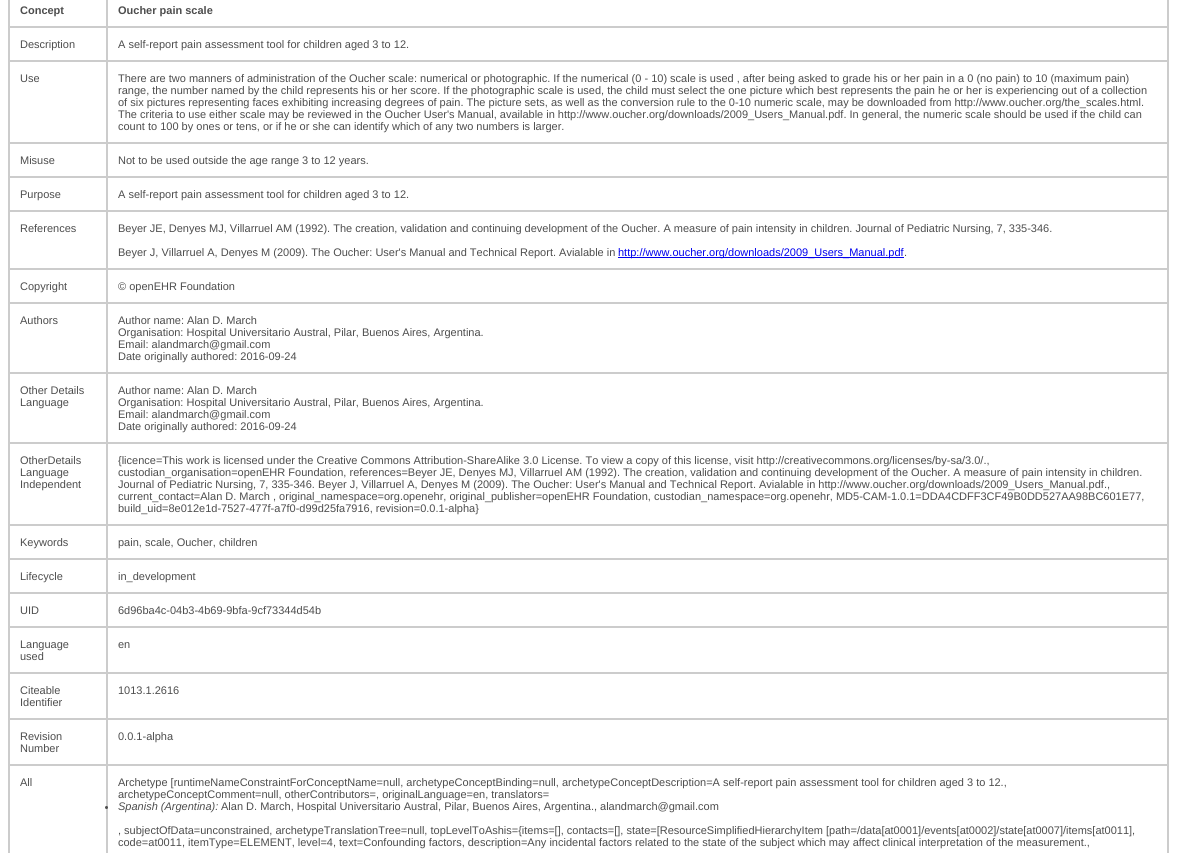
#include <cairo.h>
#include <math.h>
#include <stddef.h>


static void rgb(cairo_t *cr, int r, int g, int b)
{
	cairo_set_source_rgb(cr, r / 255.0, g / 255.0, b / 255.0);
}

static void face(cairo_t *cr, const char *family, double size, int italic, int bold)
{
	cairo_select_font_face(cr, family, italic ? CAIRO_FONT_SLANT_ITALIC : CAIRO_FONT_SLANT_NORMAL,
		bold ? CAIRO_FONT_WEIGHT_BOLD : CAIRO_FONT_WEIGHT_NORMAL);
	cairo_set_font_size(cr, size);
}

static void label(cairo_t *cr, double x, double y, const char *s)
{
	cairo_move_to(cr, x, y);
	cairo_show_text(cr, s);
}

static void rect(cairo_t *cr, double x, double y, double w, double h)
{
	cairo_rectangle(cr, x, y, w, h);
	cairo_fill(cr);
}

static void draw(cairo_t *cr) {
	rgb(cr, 255, 255, 255);
	cairo_paint(cr);
	rgb(cr, 204, 204, 204);
	rect(cr, 106, 0, 1, 27);
	rect(cr, 8, 26, 99, 2);
	rect(cr, 8, 0, 2, 27);
	face(cr, "Liberation Sans", 11, 0, 1);
	rgb(cr, 77, 77, 77);
	label(cr, 20, 14, "Concept");
	rgb(cr, 204, 204, 204);
	rect(cr, 1167, 0, 2, 27);
	rect(cr, 107, 26, 1062, 2);
	rect(cr, 107, 0, 1, 27);
	rgb(cr, 77, 77, 77);
	label(cr, 118, 14, "Oucher pain scale");
	rgb(cr, 204, 204, 204);
	rect(cr, 106, 27, 1, 34);
	rect(cr, 8, 60, 99, 2);
	rect(cr, 8, 27, 2, 34);
	face(cr, "Liberation Sans", 11, 0, 0);
	rgb(cr, 77, 77, 77);
	label(cr, 20, 48, "Description");
	rgb(cr, 204, 204, 204);
	rect(cr, 1167, 27, 2, 34);
	rect(cr, 107, 60, 1062, 2);
	rect(cr, 107, 27, 1, 34);
	rgb(cr, 77, 77, 77);
	label(cr, 118, 48, "A self-report pain assessment tool for children aged 3 to 12.");
	rgb(cr, 204, 204, 204);
	rect(cr, 106, 61, 1, 82);
	rect(cr, 8, 142, 99, 2);
	rect(cr, 8, 61, 2, 82);
	rgb(cr, 77, 77, 77);
	label(cr, 20, 82, "Use");
	rgb(cr, 204, 204, 204);
	rect(cr, 1167, 61, 2, 82);
	rect(cr, 107, 142, 1062, 2);
	rect(cr, 107, 61, 1, 82);
	rgb(cr, 77, 77, 77);
	label(cr, 118, 82, "There are two manners of administration of the Oucher scale: numerical or photographic. If the numerical (0 - 10) scale is used , after being asked to grade his or her pain in a 0 (no pain) to 10 (maximum pain)");
	label(cr, 118, 94, "range, the number named by the child represents his or her score. If the photographic scale is used, the child must select the one picture which best represents the pain he or her is experiencing out of a collection");
	label(cr, 118, 106, "of six pictures representing faces exhibiting increasing degrees of pain. The picture sets, as well as the conversion rule to the 0-10 numeric scale, may be downloaded from http://www.oucher.org/the_scales.html.");
	label(cr, 118, 118, "The criteria to use either scale may be reviewed in the Oucher User's Manual, available in http://www.oucher.org/downloads/2009_Users_Manual.pdf. In general, the numeric scale should be used if the child can");
	label(cr, 118, 130, "count to 100 by ones or tens, or if he or she can identify which of any two numbers is larger.");
	rgb(cr, 204, 204, 204);
	rect(cr, 106, 143, 1, 34);
	rect(cr, 8, 176, 99, 2);
	rect(cr, 8, 143, 2, 34);
	rgb(cr, 77, 77, 77);
	label(cr, 20, 164, "Misuse");
	rgb(cr, 204, 204, 204);
	rect(cr, 1167, 143, 2, 34);
	rect(cr, 107, 176, 1062, 2);
	rect(cr, 107, 143, 1, 34);
	rgb(cr, 77, 77, 77);
	label(cr, 118, 164, "Not to be used outside the age range 3 to 12 years.");
	rgb(cr, 204, 204, 204);
	rect(cr, 106, 177, 1, 34);
	rect(cr, 8, 210, 99, 2);
	rect(cr, 8, 177, 2, 34);
	rgb(cr, 77, 77, 77);
	label(cr, 20, 198, "Purpose");
	rgb(cr, 204, 204, 204);
	rect(cr, 1167, 177, 2, 34);
	rect(cr, 107, 210, 1062, 2);
	rect(cr, 107, 177, 1, 34);
	rgb(cr, 77, 77, 77);
	label(cr, 118, 198, "A self-report pain assessment tool for children aged 3 to 12.");
	rgb(cr, 204, 204, 204);
	rect(cr, 106, 211, 1, 58);
	rect(cr, 8, 268, 99, 2);
	rect(cr, 8, 211, 2, 58);
	rgb(cr, 77, 77, 77);
	label(cr, 20, 232, "References");
	rgb(cr, 204, 204, 204);
	rect(cr, 1167, 211, 2, 58);
	rect(cr, 107, 268, 1062, 2);
	rect(cr, 107, 211, 1, 58);
	rgb(cr, 77, 77, 77);
	label(cr, 118, 232, "Beyer JE, Denyes MJ, Villarruel AM (1992). The creation, validation and continuing development of the Oucher. A measure of pain intensity in children. Journal of Pediatric Nursing, 7, 335-346.");
	label(cr, 118, 256, "Beyer J, Villarruel A, Denyes M (2009). The Oucher: User's Manual and Technical Report. Avialable in");
	rgb(cr, 0, 0, 238);
	rect(cr, 618, 257, 286, 1);
	label(cr, 618, 256, "http://www.oucher.org/downloads/2009_Users_Manual.pdf");
	rgb(cr, 77, 77, 77);
	label(cr, 904, 256, ".");
	rgb(cr, 204, 204, 204);
	rect(cr, 106, 269, 1, 34);
	rect(cr, 8, 302, 99, 2);
	rect(cr, 8, 269, 2, 34);
	rgb(cr, 77, 77, 77);
	label(cr, 20, 290, "Copyright");
	rgb(cr, 204, 204, 204);
	rect(cr, 1167, 269, 2, 34);
	rect(cr, 107, 302, 1062, 2);
	rect(cr, 107, 269, 1, 34);
	rgb(cr, 77, 77, 77);
	label(cr, 118, 290, "© openEHR Foundation");
	rgb(cr, 204, 204, 204);
	rect(cr, 106, 303, 1, 70);
	rect(cr, 8, 372, 99, 2);
	rect(cr, 8, 303, 2, 70);
	rgb(cr, 77, 77, 77);
	label(cr, 20, 324, "Authors");
	rgb(cr, 204, 204, 204);
	rect(cr, 1167, 303, 2, 70);
	rect(cr, 107, 372, 1062, 2);
	rect(cr, 107, 303, 1, 70);
	rgb(cr, 77, 77, 77);
	label(cr, 118, 324, "Author name: Alan D. March");
	label(cr, 118, 336, "Organisation: Hospital Universitario Austral, Pilar, Buenos Aires, Argentina.");
	label(cr, 118, 348, "Email: alandmarch@gmail.com");
	label(cr, 118, 360, "Date originally authored: 2016-09-24");
	rgb(cr, 204, 204, 204);
	rect(cr, 106, 373, 1, 70);
	rect(cr, 8, 442, 99, 2);
	rect(cr, 8, 373, 2, 70);
	rgb(cr, 77, 77, 77);
	label(cr, 20, 394, "Other Details");
	label(cr, 20, 406, "Language");
	rgb(cr, 204, 204, 204);
	rect(cr, 1167, 373, 2, 70);
	rect(cr, 107, 442, 1062, 2);
	rect(cr, 107, 373, 1, 70);
	rgb(cr, 77, 77, 77);
	label(cr, 118, 394, "Author name: Alan D. March");
	label(cr, 118, 406, "Organisation: Hospital Universitario Austral, Pilar, Buenos Aires, Argentina.");
	label(cr, 118, 418, "Email: alandmarch@gmail.com");
	label(cr, 118, 430, "Date originally authored: 2016-09-24");
	rgb(cr, 204, 204, 204);
	rect(cr, 106, 443, 1, 82);
	rect(cr, 8, 524, 99, 2);
	rect(cr, 8, 443, 2, 82);
	rgb(cr, 77, 77, 77);
	label(cr, 20, 464, "OtherDetails");
	label(cr, 20, 476, "Language");
	label(cr, 20, 488, "Independent");
	rgb(cr, 204, 204, 204);
	rect(cr, 1167, 443, 2, 82);
	rect(cr, 107, 524, 1062, 2);
	rect(cr, 107, 443, 1, 82);
	rgb(cr, 77, 77, 77);
	label(cr, 118, 464, "{licence=This work is licensed under the Creative Commons Attribution-ShareAlike 3.0 License. To view a copy of this license, visit http://creativecommons.org/licenses/by-sa/3.0/.,");
	label(cr, 118, 476, "custodian_organisation=openEHR Foundation, references=Beyer JE, Denyes MJ, Villarruel AM (1992). The creation, validation and continuing development of the Oucher. A measure of pain intensity in children.");
	label(cr, 118, 488, "Journal of Pediatric Nursing, 7, 335-346. Beyer J, Villarruel A, Denyes M (2009). The Oucher: User's Manual and Technical Report. Avialable in http://www.oucher.org/downloads/2009_Users_Manual.pdf.,");
	label(cr, 118, 500, "current_contact=Alan D. March , original_namespace=org.openehr, original_publisher=openEHR Foundation, custodian_namespace=org.openehr, MD5-CAM-1.0.1=DDA4CDFF3CF49B0DD527AA98BC601E77,");
	label(cr, 118, 512, "build_uid=8e012e1d-7527-477f-a7f0-d99d25fa7916, revision=0.0.1-alpha}");
	rgb(cr, 204, 204, 204);
	rect(cr, 106, 525, 1, 34);
	rect(cr, 8, 558, 99, 2);
	rect(cr, 8, 525, 2, 34);
	rgb(cr, 77, 77, 77);
	label(cr, 20, 546, "Keywords");
	rgb(cr, 204, 204, 204);
	rect(cr, 1167, 525, 2, 34);
	rect(cr, 107, 558, 1062, 2);
	rect(cr, 107, 525, 1, 34);
	rgb(cr, 77, 77, 77);
	label(cr, 118, 546, "pain, scale, Oucher, children");
	rgb(cr, 204, 204, 204);
	rect(cr, 106, 559, 1, 34);
	rect(cr, 8, 592, 99, 2);
	rect(cr, 8, 559, 2, 34);
	rgb(cr, 77, 77, 77);
	label(cr, 20, 580, "Lifecycle");
	rgb(cr, 204, 204, 204);
	rect(cr, 1167, 559, 2, 34);
	rect(cr, 107, 592, 1062, 2);
	rect(cr, 107, 559, 1, 34);
	rgb(cr, 77, 77, 77);
	label(cr, 118, 580, "in_development");
	rgb(cr, 204, 204, 204);
	rect(cr, 106, 593, 1, 34);
	rect(cr, 8, 626, 99, 2);
	rect(cr, 8, 593, 2, 34);
	rgb(cr, 77, 77, 77);
	label(cr, 20, 614, "UID");
	rgb(cr, 204, 204, 204);
	rect(cr, 1167, 593, 2, 34);
	rect(cr, 107, 626, 1062, 2);
	rect(cr, 107, 593, 1, 34);
	rgb(cr, 77, 77, 77);
	label(cr, 118, 614, "6d96ba4c-04b3-4b69-9bfa-9cf73344d54b");
	rgb(cr, 204, 204, 204);
	rect(cr, 106, 627, 1, 46);
	rect(cr, 8, 672, 99, 2);
	rect(cr, 8, 627, 2, 46);
	rgb(cr, 77, 77, 77);
	label(cr, 20, 648, "Language");
	label(cr, 20, 660, "used");
	rgb(cr, 204, 204, 204);
	rect(cr, 1167, 627, 2, 46);
	rect(cr, 107, 672, 1062, 2);
	rect(cr, 107, 627, 1, 46);
	rgb(cr, 77, 77, 77);
	label(cr, 118, 648, "en");
	rgb(cr, 204, 204, 204);
	rect(cr, 106, 673, 1, 46);
	rect(cr, 8, 718, 99, 2);
	rect(cr, 8, 673, 2, 46);
	rgb(cr, 77, 77, 77);
	label(cr, 20, 694, "Citeable");
	label(cr, 20, 706, "Identifier");
	rgb(cr, 204, 204, 204);
	rect(cr, 1167, 673, 2, 46);
	rect(cr, 107, 718, 1062, 2);
	rect(cr, 107, 673, 1, 46);
	rgb(cr, 77, 77, 77);
	label(cr, 118, 694, "1013.1.2616");
	rgb(cr, 204, 204, 204);
	rect(cr, 106, 719, 1, 46);
	rect(cr, 8, 764, 99, 1);
	rect(cr, 8, 719, 2, 46);
	rgb(cr, 77, 77, 77);
	label(cr, 20, 740, "Revision");
	label(cr, 20, 752, "Number");
	rgb(cr, 204, 204, 204);
	rect(cr, 1167, 719, 2, 46);
	rect(cr, 107, 764, 1062, 1);
	rect(cr, 107, 719, 1, 46);
	rgb(cr, 77, 77, 77);
	label(cr, 118, 740, "0.0.1-alpha");
	cairo_rectangle(cr, 8.5, 765.5, 98, 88);
	rgb(cr, 204, 204, 204);
	cairo_set_line_width(cr, 1);
	cairo_stroke(cr);
	rect(cr, 9, 765, 1, 88);
	rgb(cr, 77, 77, 77);
	label(cr, 20, 786, "All");
	cairo_rectangle(cr, 107.5, 765.5, 1061, 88);
	rgb(cr, 204, 204, 204);
	cairo_stroke(cr);
	rect(cr, 1167, 765, 1, 88);
	rgb(cr, 77, 77, 77);
	label(cr, 118, 786, "Archetype [runtimeNameConstraintForConceptName=null, archetypeConceptBinding=null, archetypeConceptDescription=A self-report pain assessment tool for children aged 3 to 12.,");
	label(cr, 118, 798, "archetypeConceptComment=null, otherContributors=, originalLanguage=en, translators=");
	cairo_new_path(cr);
	cairo_arc(cr, 106.5, 807.5, 1.5, 0, 2 * M_PI);
	cairo_fill(cr);
	face(cr, "Liberation Sans", 11, 1, 0);
	label(cr, 118, 810, "Spanish (Argentina):");
	face(cr, "Liberation Sans", 11, 0, 0);
	label(cr, 221, 810, "Alan D. March, Hospital Universitario Austral, Pilar, Buenos Aires, Argentina., alandmarch@gmail.com");
	label(cr, 118, 834, ", subjectOfData=unconstrained, archetypeTranslationTree=null, topLevelToAshis={items=[], contacts=[], state=[ResourceSimplifiedHierarchyItem [path=/data[at0001]/events[at0002]/state[at0007]/items[at0011],");
	label(cr, 118, 846, "code=at0011, itemType=ELEMENT, level=4, text=Confounding factors, description=Any incidental factors related to the state of the subject which may affect clinical interpretation of the measurement.,");
}

int main(void) {
	cairo_surface_t *surface = cairo_image_surface_create(CAIRO_FORMAT_RGB24, 1177, 853);
	cairo_t *cr = cairo_create(surface);
	cairo_font_options_t *options = cairo_font_options_create();
	cairo_font_options_set_hint_metrics(options, CAIRO_HINT_METRICS_OFF);
	cairo_font_options_set_hint_style(options, CAIRO_HINT_STYLE_NONE);
	cairo_set_font_options(cr, options);
	cairo_set_miter_limit(cr, 4);
	draw(cr);
	cairo_surface_write_to_png(surface, "render.png");
	cairo_font_options_destroy(options);
	cairo_destroy(cr);
	cairo_surface_destroy(surface);
	return 0;
}
